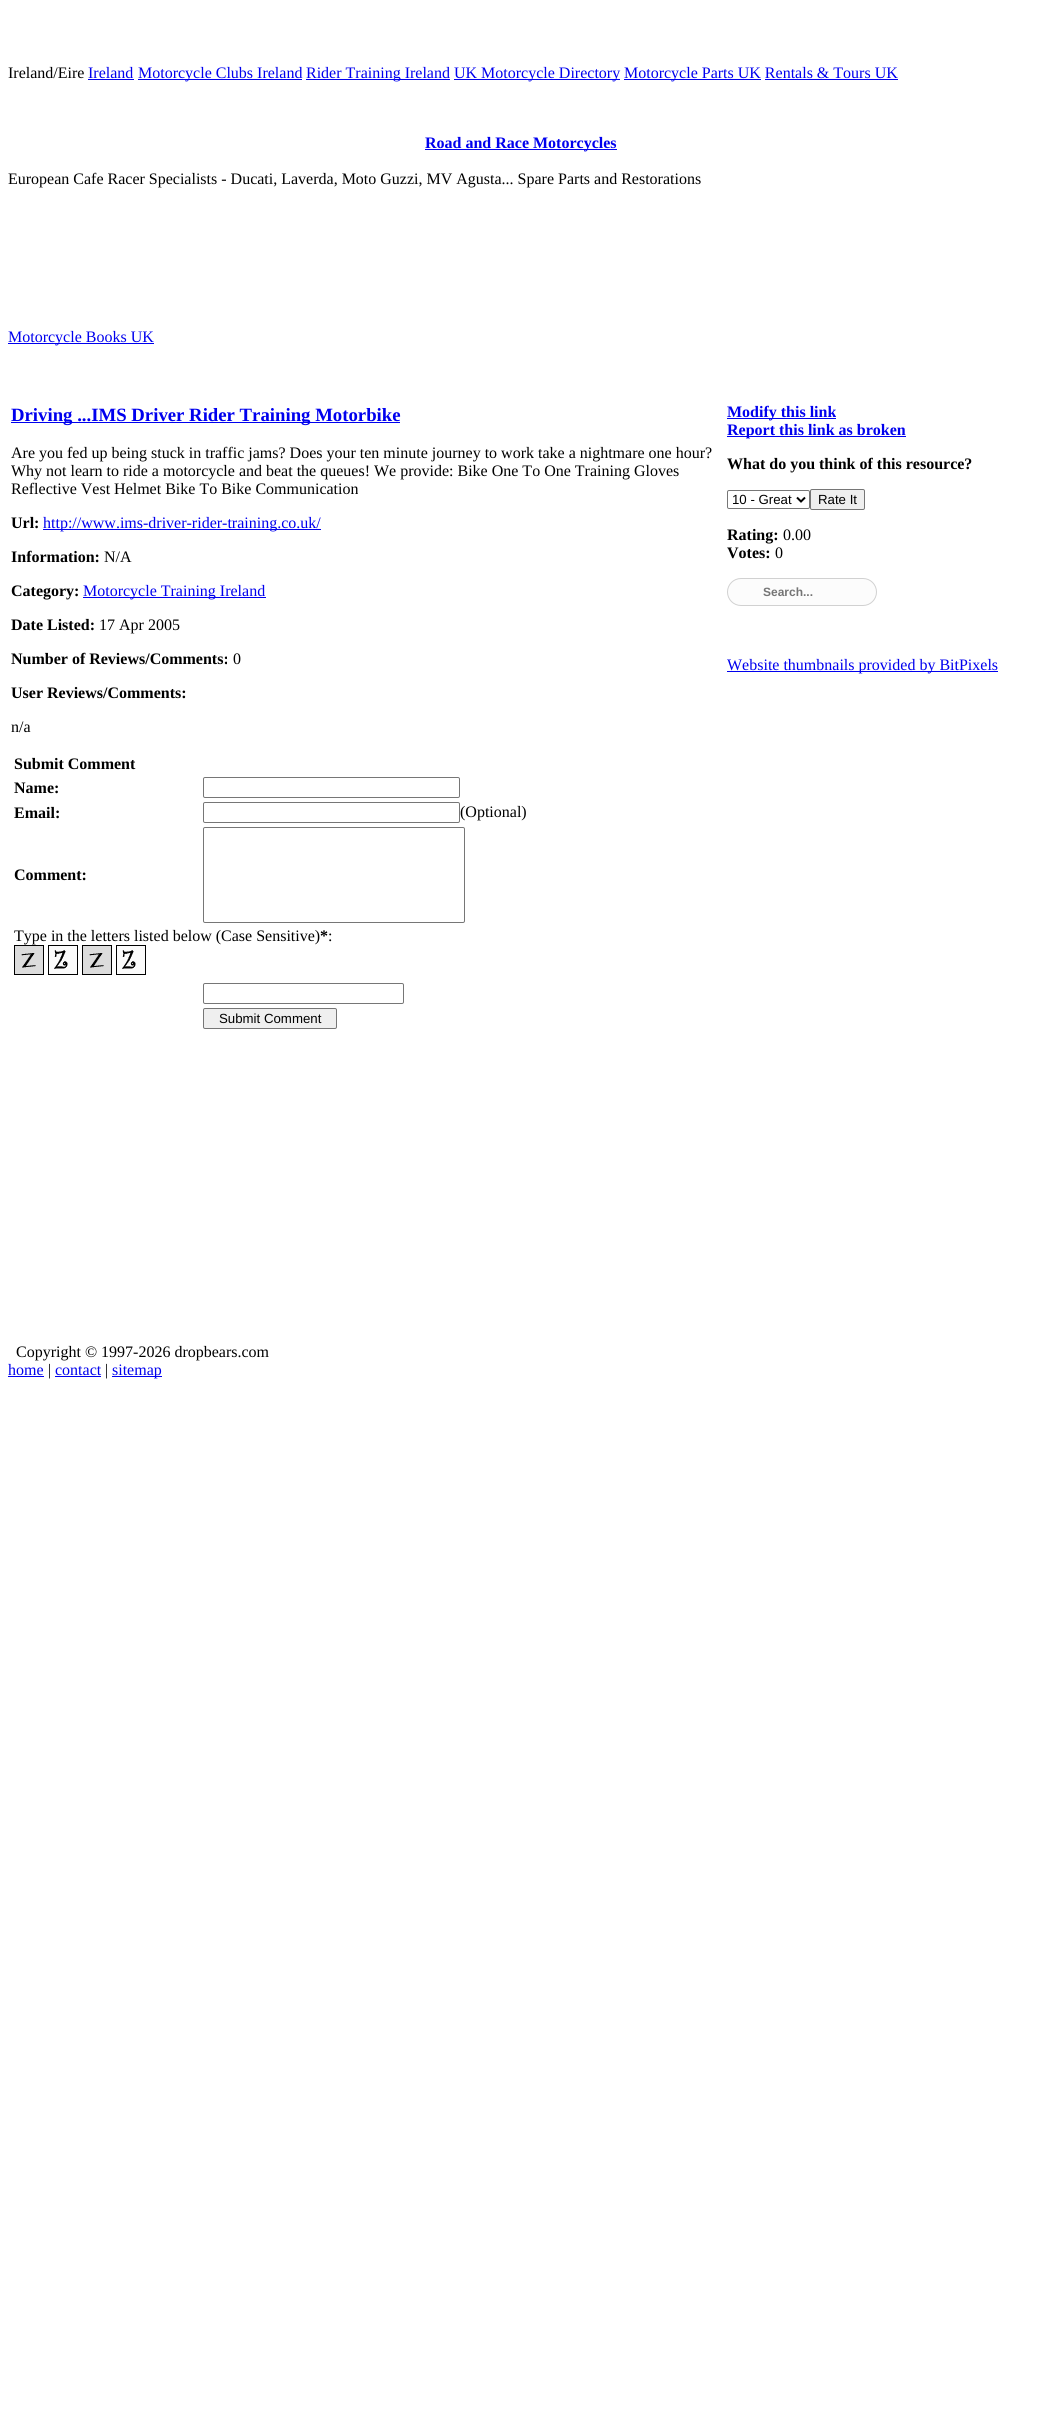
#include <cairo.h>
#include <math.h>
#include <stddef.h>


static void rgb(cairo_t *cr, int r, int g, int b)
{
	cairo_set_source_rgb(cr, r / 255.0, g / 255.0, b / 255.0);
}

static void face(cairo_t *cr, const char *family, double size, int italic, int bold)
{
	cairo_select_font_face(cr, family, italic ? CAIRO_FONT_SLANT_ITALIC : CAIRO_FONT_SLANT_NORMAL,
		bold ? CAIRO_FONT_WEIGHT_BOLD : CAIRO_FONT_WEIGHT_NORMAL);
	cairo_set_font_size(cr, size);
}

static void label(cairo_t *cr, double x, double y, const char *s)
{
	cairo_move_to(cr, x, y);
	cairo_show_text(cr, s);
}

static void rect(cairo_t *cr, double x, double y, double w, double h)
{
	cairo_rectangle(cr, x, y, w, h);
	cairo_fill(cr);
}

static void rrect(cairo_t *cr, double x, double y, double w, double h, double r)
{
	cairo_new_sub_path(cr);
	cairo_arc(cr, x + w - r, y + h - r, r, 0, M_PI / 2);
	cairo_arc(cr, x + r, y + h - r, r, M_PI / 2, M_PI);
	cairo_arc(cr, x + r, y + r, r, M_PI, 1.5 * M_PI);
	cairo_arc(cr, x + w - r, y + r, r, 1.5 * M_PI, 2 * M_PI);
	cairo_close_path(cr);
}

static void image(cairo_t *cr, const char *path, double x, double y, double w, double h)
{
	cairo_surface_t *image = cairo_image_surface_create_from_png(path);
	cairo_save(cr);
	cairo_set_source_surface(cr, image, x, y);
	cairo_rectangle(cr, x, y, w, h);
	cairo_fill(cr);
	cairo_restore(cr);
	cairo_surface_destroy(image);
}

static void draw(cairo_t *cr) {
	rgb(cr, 255, 255, 255);
	cairo_paint(cr);
	face(cr, "Liberation Serif", 16, 0, 0);
	rgb(cr, 0, 0, 0);
	label(cr, 8, 78, "Ireland/Eire");
	rgb(cr, 0, 0, 238);
	label(cr, 88, 78, "Ireland");
	rect(cr, 88, 79, 46, 1);
	rect(cr, 138, 79, 164, 1);
	label(cr, 138, 78, "Motorcycle Clubs Ireland");
	rect(cr, 306, 79, 144, 1);
	label(cr, 306, 78, "Rider Training Ireland");
	rect(cr, 454, 79, 166, 1);
	label(cr, 454, 78, "UK Motorcycle Directory");
	rect(cr, 624, 79, 137, 1);
	label(cr, 624, 78, "Motorcycle Parts UK Rentals & Tours UK");
	rect(cr, 765, 79, 133, 1);
	rect(cr, 425, 149, 192, 1);
	face(cr, "Liberation Serif", 16, 0, 1);
	label(cr, 425, 148, "Road and Race Motorcycles");
	face(cr, "Liberation Serif", 16, 0, 0);
	rgb(cr, 0, 0, 0);
	label(cr, 8, 184, "European Cafe Racer Specialists - Ducati, Laverda, Moto Guzzi, MV Agusta... Spare Parts and Restorations");
	rgb(cr, 0, 0, 238);
	rect(cr, 8, 343, 146, 1);
	label(cr, 8, 342, "Motorcycle Books UK");
	rect(cr, 11, 422, 389, 1);
	face(cr, "Liberation Serif", 18.75, 0, 1);
	label(cr, 11, 421, "Driving ...IMS Driver Rider Training Motorbike");
	face(cr, "Liberation Serif", 16, 0, 0);
	rgb(cr, 0, 0, 0);
	label(cr, 11, 458, "Are you fed up being stuck in traffic jams? Does your ten minute journey to work take a nightmare one hour?");
	label(cr, 11, 476, "Why not learn to ride a motorcycle and beat the queues! We provide: Bike One To One Training Gloves");
	label(cr, 11, 494, "Reflective Vest Helmet Bike To Bike Communication");
	face(cr, "Liberation Serif", 16, 0, 1);
	label(cr, 11, 528, "Url:");
	rgb(cr, 0, 0, 238);
	rect(cr, 43, 529, 278, 1);
	face(cr, "Liberation Serif", 16, 0, 0);
	label(cr, 43, 528, "http://www.ims-driver-rider-training.co.uk/");
	face(cr, "Liberation Serif", 16, 0, 1);
	rgb(cr, 0, 0, 0);
	label(cr, 11, 562, "Information:");
	face(cr, "Liberation Serif", 16, 0, 0);
	label(cr, 104, 562, "N/A");
	face(cr, "Liberation Serif", 16, 0, 1);
	label(cr, 11, 596, "Category:");
	rgb(cr, 0, 0, 238);
	rect(cr, 83, 597, 183, 1);
	face(cr, "Liberation Serif", 16, 0, 0);
	label(cr, 83, 596, "Motorcycle Training Ireland");
	face(cr, "Liberation Serif", 16, 0, 1);
	rgb(cr, 0, 0, 0);
	label(cr, 11, 630, "Date Listed:");
	face(cr, "Liberation Serif", 16, 0, 0);
	label(cr, 99, 630, "17 Apr 2005");
	face(cr, "Liberation Serif", 16, 0, 1);
	label(cr, 11, 664, "Number of Reviews/Comments:");
	face(cr, "Liberation Serif", 16, 0, 0);
	label(cr, 233, 664, "0");
	face(cr, "Liberation Serif", 16, 0, 1);
	label(cr, 11, 698, "User Reviews/Comments:");
	face(cr, "Liberation Serif", 16, 0, 0);
	label(cr, 11, 732, "n/a");
	face(cr, "Liberation Serif", 16, 0, 1);
	label(cr, 14, 769, "Submit Comment");
	label(cr, 14, 793, "Name:");
	rrect(cr, 203.5, 777.5, 256, 20, 1.5);
	rgb(cr, 118, 118, 118);
	cairo_set_line_width(cr, 1);
	cairo_stroke(cr);
	rgb(cr, 0, 0, 0);
	label(cr, 14, 818, "Email:");
	rrect(cr, 203.5, 802.5, 256, 20, 1.5);
	rgb(cr, 118, 118, 118);
	cairo_stroke(cr);
	face(cr, "Liberation Serif", 16, 0, 0);
	rgb(cr, 0, 0, 0);
	label(cr, 460, 817, "(Optional)");
	face(cr, "Liberation Serif", 16, 0, 1);
	label(cr, 14, 880, "Comment:");
	rrect(cr, 203.5, 827.5, 261, 95, 1.5);
	rgb(cr, 118, 118, 118);
	cairo_stroke(cr);
	face(cr, "Liberation Serif", 16, 0, 0);
	rgb(cr, 0, 0, 0);
	label(cr, 14, 941, "Type in the letters listed below (Case Sensitive)");
	face(cr, "Liberation Serif", 16, 0, 1);
	label(cr, 320, 941, "*");
	face(cr, "Liberation Serif", 16, 0, 0);
	label(cr, 328, 941, ":");
	image(cr, "image0.png", 14, 945, 30, 30);
	image(cr, "image1.png", 48, 945, 30, 30);
	image(cr, "image0.png", 82, 945, 30, 30);
	image(cr, "image1.png", 116, 945, 30, 30);
	rrect(cr, 203.5, 983.5, 200, 20, 1.5);
	rgb(cr, 118, 118, 118);
	cairo_stroke(cr);
	rgb(cr, 239, 239, 239);
	rrect(cr, 203.5, 1008.5, 133, 20, 1.5);
	cairo_fill_preserve(cr);
	rgb(cr, 118, 118, 118);
	cairo_stroke(cr);
	face(cr, "Liberation Sans", 13.25, 0, 0);
	rgb(cr, 0, 0, 0);
	label(cr, 219, 1023, "Submit Comment");
	rgb(cr, 0, 0, 238);
	rect(cr, 727, 418, 109, 1);
	face(cr, "Liberation Serif", 16, 0, 1);
	label(cr, 727, 417, "Modify this link");
	rect(cr, 727, 436, 179, 1);
	label(cr, 727, 435, "Report this link as broken");
	rgb(cr, 0, 0, 0);
	label(cr, 727, 469, "What do you think of this resource?");
	rrect(cr, 727.5, 490.5, 82, 18, 1.5);
	rgb(cr, 118, 118, 118);
	cairo_stroke(cr);
	cairo_new_path(cr);
	cairo_move_to(cr, 797, 497.5);
	cairo_line_to(cr, 801, 501.5);
	cairo_line_to(cr, 805, 497.5);
	rgb(cr, 0, 0, 0);
	cairo_set_line_width(cr, 2);
	cairo_stroke(cr);
	face(cr, "Liberation Sans", 13.25, 0, 0);
	label(cr, 732, 504, "10 - Great");
	rgb(cr, 239, 239, 239);
	rrect(cr, 810.5, 489.5, 54, 20, 1.5);
	cairo_fill_preserve(cr);
	rgb(cr, 118, 118, 118);
	cairo_set_line_width(cr, 1);
	cairo_stroke(cr);
	rgb(cr, 0, 0, 0);
	label(cr, 818, 504, "Rate It");
	face(cr, "Liberation Serif", 16, 0, 1);
	label(cr, 727, 540, "Rating:");
	face(cr, "Liberation Serif", 16, 0, 0);
	label(cr, 783, 540, "0.00");
	face(cr, "Liberation Serif", 16, 0, 1);
	label(cr, 727, 558, "Votes:");
	face(cr, "Liberation Serif", 16, 0, 0);
	label(cr, 775, 558, "0");
	rgb(cr, 252, 252, 252);
	rrect(cr, 727.5, 578.5, 149, 27, 13.5);
	cairo_fill_preserve(cr);
	rgb(cr, 209, 209, 209);
	cairo_stroke(cr);
	face(cr, "Liberation Sans", 12, 0, 1);
	rgb(cr, 117, 117, 117);
	label(cr, 763, 596, "Search...");
	rgb(cr, 0, 0, 238);
	rect(cr, 727, 671, 271, 1);
	face(cr, "Liberation Serif", 16, 0, 0);
	label(cr, 727, 670, "Website thumbnails provided by BitPixels");
	rgb(cr, 0, 0, 0);
	label(cr, 16, 1357, "Copyright © 1997-2026 dropbears.com");
	rgb(cr, 0, 0, 238);
	label(cr, 8, 1375, "home");
	rect(cr, 8, 1376, 36, 1);
	rgb(cr, 0, 0, 0);
	label(cr, 48, 1375, "|");
	rgb(cr, 0, 0, 238);
	label(cr, 55, 1375, "contact");
	rect(cr, 55, 1376, 46, 1);
	rgb(cr, 0, 0, 0);
	label(cr, 105, 1375, "|");
	rgb(cr, 0, 0, 238);
	rect(cr, 112, 1376, 50, 1);
	label(cr, 112, 1375, "sitemap");
}

int main(void) {
	cairo_surface_t *surface = cairo_image_surface_create(CAIRO_FORMAT_RGB24, 1042, 2435);
	cairo_t *cr = cairo_create(surface);
	cairo_font_options_t *options = cairo_font_options_create();
	cairo_font_options_set_hint_metrics(options, CAIRO_HINT_METRICS_OFF);
	cairo_font_options_set_hint_style(options, CAIRO_HINT_STYLE_NONE);
	cairo_set_font_options(cr, options);
	cairo_set_miter_limit(cr, 4);
	draw(cr);
	cairo_surface_write_to_png(surface, "render.png");
	cairo_font_options_destroy(options);
	cairo_destroy(cr);
	cairo_surface_destroy(surface);
	return 0;
}
